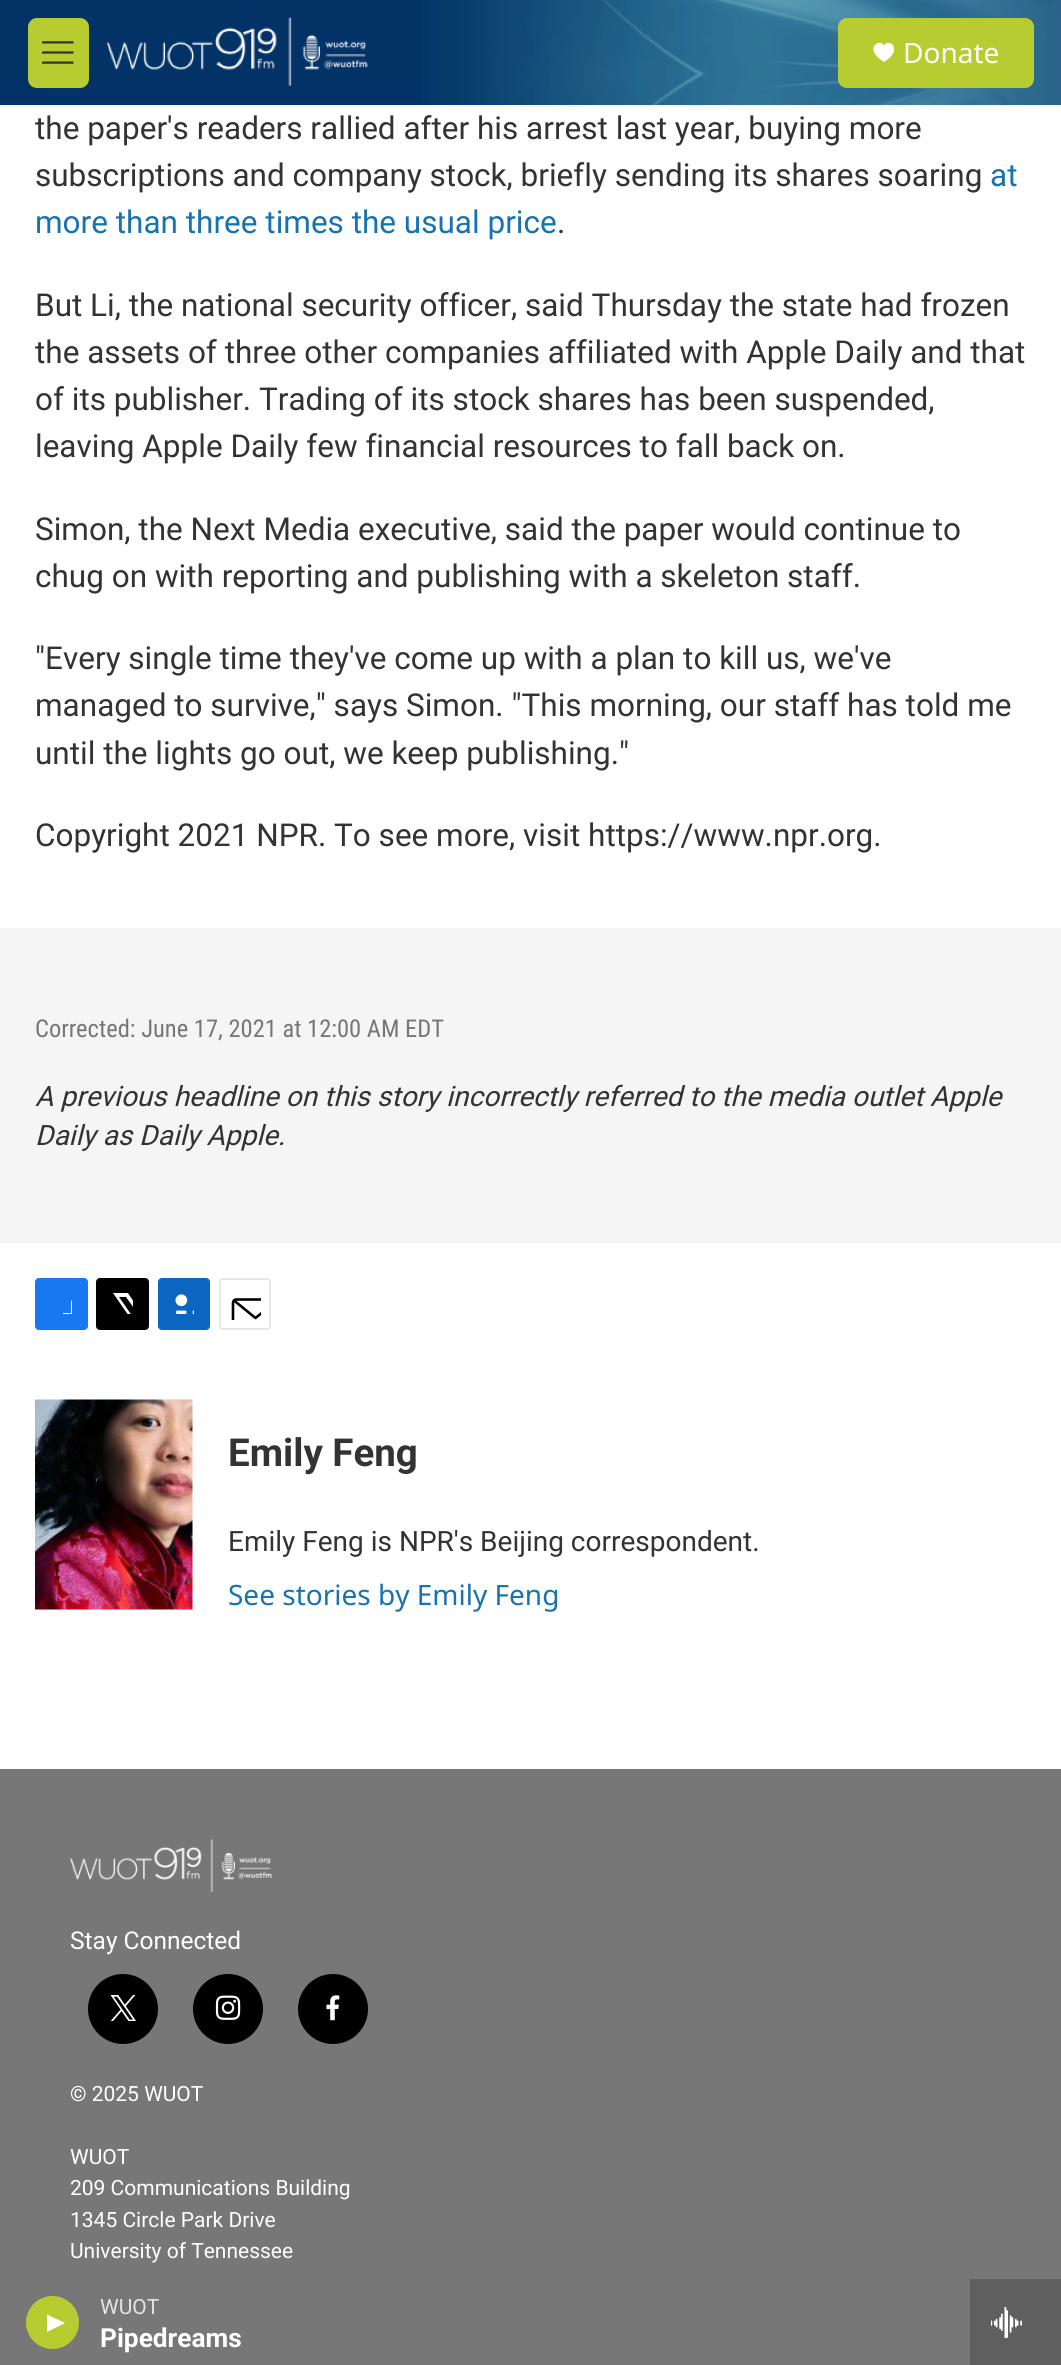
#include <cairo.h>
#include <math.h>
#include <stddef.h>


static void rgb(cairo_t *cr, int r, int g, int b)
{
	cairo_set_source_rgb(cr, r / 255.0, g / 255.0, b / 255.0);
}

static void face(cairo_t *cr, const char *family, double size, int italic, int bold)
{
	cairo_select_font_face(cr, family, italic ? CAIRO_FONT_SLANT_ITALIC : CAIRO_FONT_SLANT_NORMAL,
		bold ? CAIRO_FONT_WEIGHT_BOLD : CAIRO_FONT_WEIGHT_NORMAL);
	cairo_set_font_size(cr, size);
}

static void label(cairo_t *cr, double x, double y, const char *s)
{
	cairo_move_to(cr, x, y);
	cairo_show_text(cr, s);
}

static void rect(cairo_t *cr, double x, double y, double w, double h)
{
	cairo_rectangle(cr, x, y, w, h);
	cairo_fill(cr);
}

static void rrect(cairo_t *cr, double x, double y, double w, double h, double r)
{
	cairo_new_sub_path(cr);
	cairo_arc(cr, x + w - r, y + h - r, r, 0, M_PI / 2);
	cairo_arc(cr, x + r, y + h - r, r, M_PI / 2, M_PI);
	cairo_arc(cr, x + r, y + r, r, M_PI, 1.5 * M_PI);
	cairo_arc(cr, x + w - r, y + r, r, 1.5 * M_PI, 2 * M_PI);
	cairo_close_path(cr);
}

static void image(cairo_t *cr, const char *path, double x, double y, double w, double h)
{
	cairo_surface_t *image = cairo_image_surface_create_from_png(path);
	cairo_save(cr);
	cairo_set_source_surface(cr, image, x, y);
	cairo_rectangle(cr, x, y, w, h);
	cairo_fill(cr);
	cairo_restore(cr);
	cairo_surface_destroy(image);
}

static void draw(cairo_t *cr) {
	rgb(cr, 255, 255, 255);
	cairo_paint(cr);
	rgb(cr, 245, 245, 245);
	rect(cr, 0, 105, 1061, 2);
	image(cr, "image0.png", 0, 0, 1061, 105);
	rgb(cr, 183, 204, 49);
	rrect(cr, 28, 18, 61, 70, 9);
	cairo_fill(cr);
	image(cr, "image1.png", 42, 41, 32, 23);
	image(cr, "image2.png", 106, 17, 262, 69);
	rrect(cr, 838, 18, 196, 70, 9);
	cairo_fill(cr);
	cairo_save(cr);
	cairo_rectangle(cr, 873, 42, 21, 21);
	cairo_clip(cr);
	rgb(cr, 255, 255, 255);
	cairo_new_path(cr);
	cairo_move_to(cr, 884, 46);
	cairo_curve_to(cr, 880.5, 37, 862, 48.5, 884, 62);
	cairo_curve_to(cr, 905.5, 48.5, 887, 37, 884, 46);
	cairo_close_path(cr);
	cairo_fill(cr);
	cairo_restore(cr);
	face(cr, "Noto Sans", 28, 0, 0);
	rgb(cr, 255, 255, 255);
	label(cr, 903, 63, "Donate");
	rgb(cr, 119, 119, 119);
	rect(cr, 0, 2279, 970, 86);
	rgb(cr, 183, 204, 49);
	cairo_new_path(cr);
	cairo_arc(cr, 52.5, 2322.5, 26.5, 0, 2 * M_PI);
	cairo_fill(cr);
	rgb(cr, 255, 255, 255);
	cairo_new_path(cr);
	cairo_move_to(cr, 47, 2314.5);
	cairo_line_to(cr, 65, 2323);
	cairo_line_to(cr, 47, 2332);
	cairo_close_path(cr);
	cairo_fill(cr);
	face(cr, "Roboto", 21, 0, 0);
	rgb(cr, 228, 228, 228);
	label(cr, 100, 2314, "WUOT");
	face(cr, "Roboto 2", 26.25, 0, 1);
	rgb(cr, 255, 255, 255);
	label(cr, 100, 2347, "Pipedreams");
	rgb(cr, 95, 95, 95);
	rect(cr, 970, 2279, 91, 86);
	image(cr, "image3.png", 991, 2307, 31, 31);
	face(cr, "Roboto", 31.5, 0, 0);
	rgb(cr, 51, 51, 51);
	label(cr, 35, 139, "the paper's readers rallied after his arrest last year, buying more");
	label(cr, 35, 186, "subscriptions and company stock, briefly sending its shares soaring");
	rgb(cr, 23, 114, 176);
	label(cr, 990, 186, "at");
	label(cr, 35, 233, "more than three times the usual price");
	rgb(cr, 51, 51, 51);
	label(cr, 557, 233, ".");
	label(cr, 35, 316, "But Li, the national security officer, said Thursday the state had frozen");
	label(cr, 35, 363, "the assets of three other companies affiliated with Apple Daily and that");
	label(cr, 35, 410, "of its publisher. Trading of its stock shares has been suspended,");
	label(cr, 35, 457, "leaving Apple Daily few financial resources to fall back on.");
	label(cr, 35, 540, "Simon, the Next Media executive, said the paper would continue to");
	label(cr, 35, 587, "chug on with reporting and publishing with a skeleton staff.");
	label(cr, 35, 669, "\"Every single time they've come up with a plan to kill us, we've");
	label(cr, 35, 716, "managed to survive,\" says Simon. \"This morning, our staff has told me");
	label(cr, 35, 764, "until the lights go out, we keep publishing.\"");
	label(cr, 35, 846, "Copyright 2021 NPR. To see more, visit https://www.npr.org.");
	rgb(cr, 245, 245, 245);
	rect(cr, 0, 928, 1061, 315);
	face(cr, "Roboto Condensed", 24.5, 0, 0);
	rgb(cr, 118, 118, 118);
	label(cr, 35, 1037, "Corrected: June 17, 2021 at 12:00 AM EDT");
	face(cr, "Roboto", 28, 1, 0);
	rgb(cr, 51, 51, 51);
	label(cr, 35, 1106, "A previous headline on this story incorrectly referred to the media outlet Apple");
	label(cr, 35, 1145, "Daily as Daily Apple.");
	rgb(cr, 23, 120, 242);
	rrect(cr, 35, 1278, 53, 52, 4);
	cairo_fill(cr);
	cairo_save(cr);
	cairo_rectangle(cr, 51, 1293, 21, 21);
	cairo_clip(cr);
	rgb(cr, 255, 255, 255);
	cairo_new_path(cr);
	cairo_move_to(cr, 80, 1330);
	cairo_line_to(cr, 71, 1330);
	cairo_line_to(cr, 71, 1321);
	cairo_line_to(cr, 63, 1321);
	cairo_line_to(cr, 63, 1313);
	cairo_line_to(cr, 71, 1313);
	cairo_line_to(cr, 71, 1303);
	cairo_curve_to(cr, 72, 1294.5, 80.5, 1293, 88, 1294);
	cairo_line_to(cr, 88, 1302);
	cairo_curve_to(cr, 78, 1302, 80, 1305, 80, 1313);
	cairo_line_to(cr, 88, 1313);
	cairo_line_to(cr, 87, 1321);
	cairo_line_to(cr, 80, 1321);
	cairo_close_path(cr);
	cairo_fill(cr);
	cairo_restore(cr);
	rgb(cr, 0, 0, 0);
	rrect(cr, 96, 1278, 53, 52, 4);
	cairo_fill(cr);
	cairo_save(cr);
	cairo_rectangle(cr, 112, 1293, 21, 21);
	cairo_clip(cr);
	rgb(cr, 255, 255, 255);
	cairo_new_path(cr);
	cairo_move_to(cr, 143, 1315);
	cairo_line_to(cr, 149, 1324);
	cairo_curve_to(cr, 149, 1325.5, 149, 1327, 148.5, 1328.5);
	cairo_line_to(cr, 126, 1297);
	cairo_line_to(cr, 119, 1297);
	cairo_line_to(cr, 137, 1323);
	cairo_line_to(cr, 142, 1330);
	cairo_line_to(cr, 138.5, 1330);
	cairo_line_to(cr, 135, 1325);
	cairo_line_to(cr, 130.5, 1330);
	cairo_line_to(cr, 126.5, 1330);
	cairo_line_to(cr, 133, 1322);
	cairo_line_to(cr, 113, 1293);
	cairo_line_to(cr, 128, 1293);
	cairo_line_to(cr, 141, 1313);
	cairo_line_to(cr, 149, 1303.5);
	cairo_line_to(cr, 149, 1308);
	cairo_close_path(cr);
	cairo_fill(cr);
	cairo_restore(cr);
	rgb(cr, 10, 102, 193);
	rrect(cr, 158, 1278, 52, 52, 4);
	cairo_fill(cr);
	image(cr, "image4.png", 175, 1294, 19, 20);
	rrect(cr, 220, 1279, 50, 50, 3);
	rgb(cr, 230, 230, 230);
	cairo_stroke(cr);
	cairo_save(cr);
	cairo_rectangle(cr, 229, 1288, 32, 32);
	cairo_clip(cr);
	cairo_new_path(cr);
	cairo_move_to(cr, 278, 1326.5);
	cairo_curve_to(cr, 278, 1328, 276.5, 1329.5, 275, 1329.5);
	cairo_line_to(cr, 236, 1329.5);
	cairo_curve_to(cr, 234.5, 1329.5, 233, 1328, 233, 1326.5);
	cairo_line_to(cr, 233, 1303);
	cairo_curve_to(cr, 233, 1301, 234.5, 1299.5, 236, 1299.5);
	cairo_line_to(cr, 275, 1299.5);
	cairo_curve_to(cr, 276.5, 1299.5, 278, 1301, 278, 1303);
	cairo_close_path(cr);
	cairo_move_to(cr, 277, 1300.5);
	cairo_line_to(cr, 255.5, 1318);
	cairo_line_to(cr, 234, 1300.5);
	rgb(cr, 0, 0, 0);
	cairo_set_line_width(cr, 2.6);
	cairo_set_line_cap(cr, CAIRO_LINE_CAP_ROUND);
	cairo_set_line_join(cr, CAIRO_LINE_JOIN_ROUND);
	cairo_stroke(cr);
	cairo_restore(cr);
	image(cr, "image5.png", 35, 1399, 158, 211);
	face(cr, "Roboto", 38.5, 0, 1);
	rgb(cr, 51, 51, 51);
	label(cr, 228, 1466, "Emily Feng");
	face(cr, "Roboto", 28, 0, 0);
	label(cr, 228, 1551, "Emily Feng is NPR's Beijing correspondent.");
	face(cr, "Noto Sans", 28, 0, 0);
	rgb(cr, 23, 114, 176);
	label(cr, 228, 1605, "See stories by Emily Feng");
	rgb(cr, 119, 119, 119);
	rect(cr, 0, 1769, 1061, 510);
	image(cr, "image6.png", 70, 1839, 202, 53);
	face(cr, "Roboto", 24.5, 0, 0);
	rgb(cr, 255, 255, 255);
	label(cr, 70, 1949, "Stay Connected");
	rgb(cr, 0, 0, 0);
	cairo_new_path(cr);
	cairo_arc(cr, 123, 2009, 35, 0, 2 * M_PI);
	cairo_fill(cr);
	image(cr, "image7.png", 110, 1995, 26, 26);
	cairo_arc(cr, 228, 2009, 35, 0, 2 * M_PI);
	cairo_fill(cr);
	image(cr, "image8.png", 215, 1995, 26, 25);
	cairo_arc(cr, 333, 2009, 35, 0, 2 * M_PI);
	cairo_fill(cr);
	image(cr, "image9.png", 326, 1995, 14, 26);
	face(cr, "Roboto", 21, 0, 0);
	rgb(cr, 255, 255, 255);
	label(cr, 70, 2101, "© 2025 WUOT");
	label(cr, 70, 2164, "WUOT");
	label(cr, 70, 2195, "209 Communications Building");
	label(cr, 70, 2227, "1345 Circle Park Drive");
	label(cr, 70, 2258, "University of Tennessee");
}

int main(void) {
	cairo_surface_t *surface = cairo_image_surface_create(CAIRO_FORMAT_RGB24, 1061, 2365);
	cairo_t *cr = cairo_create(surface);
	cairo_font_options_t *options = cairo_font_options_create();
	cairo_font_options_set_hint_metrics(options, CAIRO_HINT_METRICS_OFF);
	cairo_font_options_set_hint_style(options, CAIRO_HINT_STYLE_NONE);
	cairo_set_font_options(cr, options);
	cairo_set_miter_limit(cr, 4);
	draw(cr);
	cairo_surface_write_to_png(surface, "render.png");
	cairo_font_options_destroy(options);
	cairo_destroy(cr);
	cairo_surface_destroy(surface);
	return 0;
}
